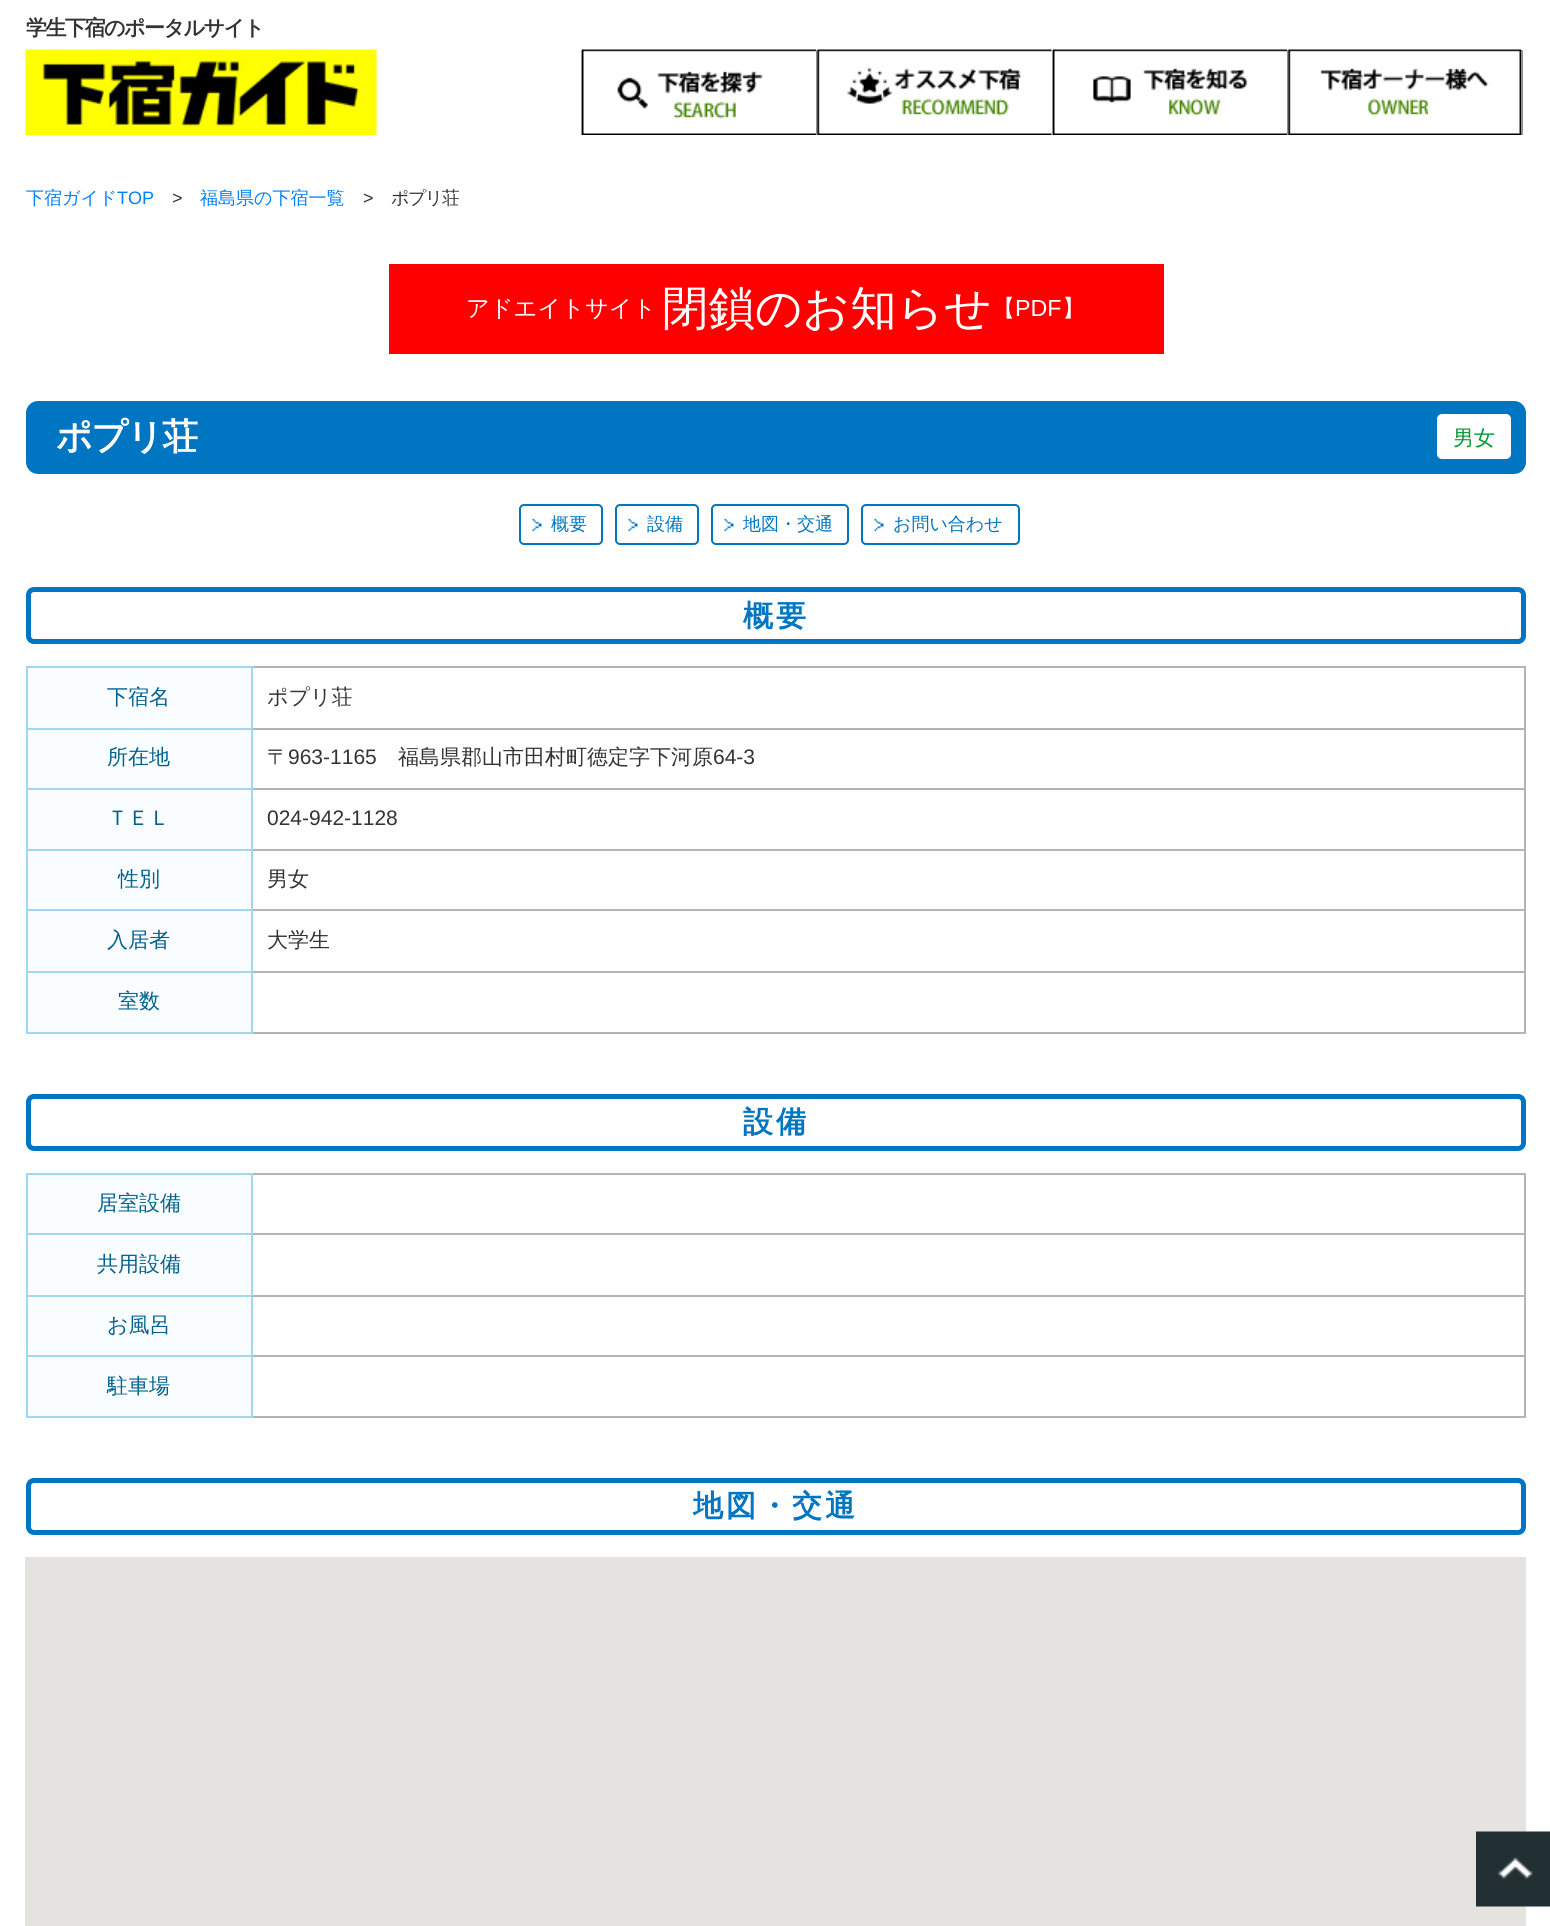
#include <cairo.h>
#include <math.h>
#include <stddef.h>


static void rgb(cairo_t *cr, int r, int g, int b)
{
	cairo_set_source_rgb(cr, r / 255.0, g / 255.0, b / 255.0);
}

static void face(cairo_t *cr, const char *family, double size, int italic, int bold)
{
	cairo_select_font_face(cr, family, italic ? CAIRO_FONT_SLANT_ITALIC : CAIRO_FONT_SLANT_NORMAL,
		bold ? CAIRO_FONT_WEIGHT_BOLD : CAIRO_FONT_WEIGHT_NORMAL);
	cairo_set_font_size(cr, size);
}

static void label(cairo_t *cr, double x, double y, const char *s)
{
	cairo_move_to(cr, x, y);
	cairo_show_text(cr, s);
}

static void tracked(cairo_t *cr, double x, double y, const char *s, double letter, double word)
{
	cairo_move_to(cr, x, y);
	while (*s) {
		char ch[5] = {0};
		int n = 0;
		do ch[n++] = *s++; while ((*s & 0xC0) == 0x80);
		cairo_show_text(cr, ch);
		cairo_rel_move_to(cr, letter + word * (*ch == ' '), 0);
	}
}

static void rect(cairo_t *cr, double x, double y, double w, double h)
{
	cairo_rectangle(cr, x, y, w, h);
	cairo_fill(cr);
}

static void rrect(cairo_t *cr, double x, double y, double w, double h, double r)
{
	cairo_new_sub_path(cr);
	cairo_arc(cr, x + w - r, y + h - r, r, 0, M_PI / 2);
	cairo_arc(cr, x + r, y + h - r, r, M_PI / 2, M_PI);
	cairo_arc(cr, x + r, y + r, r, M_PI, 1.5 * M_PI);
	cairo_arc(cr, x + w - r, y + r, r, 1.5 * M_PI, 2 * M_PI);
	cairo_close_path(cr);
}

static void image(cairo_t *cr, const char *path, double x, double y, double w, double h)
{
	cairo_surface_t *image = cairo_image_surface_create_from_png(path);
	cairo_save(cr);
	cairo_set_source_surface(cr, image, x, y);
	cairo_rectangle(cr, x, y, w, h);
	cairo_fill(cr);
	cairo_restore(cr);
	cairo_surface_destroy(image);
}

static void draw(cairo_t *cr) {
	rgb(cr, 255, 255, 255);
	cairo_paint(cr);
	face(cr, "WenQuanYi Zen Hei", 21, 0, 1);
	rgb(cr, 51, 51, 51);
	tracked(cr, 26, 35, "学生下宿のポータルサイト", -1.5, 0);
	image(cr, "image0.png", 25, 49, 352, 86);
	rgb(cr, 144, 144, 144);
	rect(cr, 581, 50, 1, 85);
	image(cr, "image1.png", 582, 49, 234, 86);
	rect(cr, 816, 50, 2, 85);
	image(cr, "image2.png", 817, 49, 235, 86);
	rect(cr, 1052, 50, 1, 85);
	image(cr, "image3.png", 1053, 49, 234, 86);
	rect(cr, 1521, 50, 2, 85);
	rect(cr, 1287, 50, 2, 85);
	image(cr, "image4.png", 1288, 49, 233, 86);
	face(cr, "WenQuanYi Zen Hei Medium", 18, 0, 0);
	rgb(cr, 0, 127, 255);
	label(cr, 26, 204, "下宿ガイド");
	face(cr, "Liberation Sans", 18, 0, 0);
	label(cr, 117, 204, "TOP");
	rgb(cr, 51, 51, 51);
	label(cr, 172, 204, ">");
	face(cr, "WenQuanYi Zen Hei Medium", 18, 0, 0);
	rgb(cr, 0, 127, 255);
	label(cr, 200, 204, "福島県の下宿一覧");
	face(cr, "Liberation Sans", 18, 0, 0);
	rgb(cr, 51, 51, 51);
	label(cr, 363, 204, ">");
	face(cr, "WenQuanYi Zen Hei Medium", 18, 0, 0);
	tracked(cr, 391, 204, "ポプリ荘", -1.5, 0);
	rgb(cr, 255, 0, 0);
	rect(cr, 389, 264, 775, 90);
	face(cr, "WenQuanYi Zen Hei Medium", 23.25, 0, 0);
	rgb(cr, 255, 255, 255);
	label(cr, 466, 316, "アドエイトサイト");
	face(cr, "WenQuanYi Zen Hei Medium", 46.5, 0, 0);
	label(cr, 662, 324, "閉鎖のお知らせ");
	face(cr, "WenQuanYi Zen Hei Medium", 23.25, 0, 0);
	label(cr, 992, 316, "【");
	face(cr, "Liberation Sans", 23.25, 0, 0);
	label(cr, 1015, 316, "PDF");
	face(cr, "WenQuanYi Zen Hei Medium", 23.25, 0, 0);
	label(cr, 1062, 316, "】");
	rgb(cr, 0, 117, 194);
	rrect(cr, 26, 401, 1500, 73, 12);
	cairo_fill(cr);
	face(cr, "WenQuanYi Zen Hei", 36, 0, 1);
	rgb(cr, 255, 255, 255);
	tracked(cr, 56, 449, "ポプリ荘", -1.5, 0);
	rrect(cr, 1437, 414, 74, 45, 5);
	cairo_fill(cr);
	face(cr, "WenQuanYi Zen Hei Medium", 21, 0, 0);
	rgb(cr, 0, 153, 51);
	label(cr, 1453, 445, "男女");
	image(cr, "image5.png", 532, 519, 10, 12);
	rrect(cr, 520, 505, 82, 39, 4);
	rgb(cr, 0, 117, 194);
	cairo_stroke(cr);
	face(cr, "WenQuanYi Zen Hei Medium", 18, 0, 0);
	label(cr, 551, 530, "概要");
	image(cr, "image5.png", 628, 519, 10, 12);
	rrect(cr, 616, 505, 82, 39, 4);
	cairo_stroke(cr);
	label(cr, 647, 530, "設備");
	image(cr, "image5.png", 724, 519, 10, 12);
	rrect(cr, 712, 505, 136, 39, 4);
	cairo_stroke(cr);
	label(cr, 743, 530, "地図・交通");
	image(cr, "image6.png", 874, 519, 10, 12);
	rrect(cr, 862, 505, 157, 39, 4);
	cairo_stroke(cr);
	label(cr, 893, 530, "お問い合わせ");
	rrect(cr, 28.5, 589.5, 1495, 52, 5.5);
	cairo_set_line_width(cr, 5);
	cairo_stroke(cr);
	face(cr, "WenQuanYi Zen Hei", 30, 0, 1);
	tracked(cr, 743, 626, "概要", 3, 0);
	rgb(cr, 250, 253, 255);
	rect(cr, 28, 668, 223, 60);
	rgb(cr, 180, 180, 180);
	rect(cr, 251, 666, 1275, 2);
	rgb(cr, 160, 216, 239);
	rect(cr, 26, 666, 226, 2);
	rgb(cr, 180, 180, 180);
	rect(cr, 1524, 728, 2, 306);
	rect(cr, 1524, 666, 2, 63);
	rgb(cr, 160, 216, 239);
	rect(cr, 26, 849, 226, 2);
	rect(cr, 26, 909, 226, 2);
	rgb(cr, 180, 180, 180);
	rect(cr, 251, 1032, 1275, 2);
	rgb(cr, 160, 216, 239);
	rect(cr, 251, 971, 2, 63);
	rgb(cr, 180, 180, 180);
	rect(cr, 251, 971, 1275, 2);
	rgb(cr, 160, 216, 239);
	rect(cr, 251, 909, 2, 63);
	rgb(cr, 180, 180, 180);
	rect(cr, 251, 909, 1275, 2);
	rgb(cr, 160, 216, 239);
	rect(cr, 251, 849, 2, 62);
	rgb(cr, 180, 180, 180);
	rect(cr, 251, 849, 1275, 2);
	rgb(cr, 160, 216, 239);
	rect(cr, 251, 788, 2, 63);
	rgb(cr, 180, 180, 180);
	rect(cr, 251, 788, 1275, 2);
	rgb(cr, 160, 216, 239);
	rect(cr, 251, 728, 2, 61);
	rgb(cr, 180, 180, 180);
	rect(cr, 251, 728, 1275, 2);
	rgb(cr, 160, 216, 239);
	rect(cr, 251, 666, 2, 63);
	rect(cr, 26, 1032, 226, 2);
	rect(cr, 26, 971, 2, 63);
	rect(cr, 26, 971, 226, 2);
	rect(cr, 26, 909, 2, 63);
	rect(cr, 26, 788, 2, 123);
	rect(cr, 26, 788, 226, 2);
	rect(cr, 26, 728, 2, 61);
	rect(cr, 26, 728, 226, 2);
	rect(cr, 26, 666, 2, 63);
	face(cr, "WenQuanYi Zen Hei Medium", 21, 0, 0);
	rgb(cr, 0, 96, 141);
	label(cr, 107, 704, "下宿名");
	rgb(cr, 51, 51, 51);
	label(cr, 267, 704, "ポプリ荘");
	rgb(cr, 250, 253, 255);
	rect(cr, 28, 730, 223, 58);
	rgb(cr, 0, 96, 141);
	label(cr, 107, 764, "所在地");
	rgb(cr, 51, 51, 51);
	label(cr, 267, 764, "〒");
	face(cr, "Liberation Sans", 21, 0, 0);
	label(cr, 288, 764, "963-1165");
	face(cr, "WenQuanYi Zen Hei Medium", 21, 0, 0);
	label(cr, 398, 764, "福島県郡山市田村町徳定字下河原");
	face(cr, "Liberation Sans", 21, 0, 0);
	label(cr, 713, 764, "64-3");
	rgb(cr, 250, 253, 255);
	rect(cr, 28, 790, 223, 59);
	face(cr, "WenQuanYi Zen Hei Medium", 21, 0, 0);
	rgb(cr, 0, 96, 141);
	label(cr, 107, 825, "ＴＥＬ");
	face(cr, "Liberation Sans", 21, 0, 0);
	rgb(cr, 51, 51, 51);
	label(cr, 267, 825, "024-942-1128");
	rgb(cr, 250, 253, 255);
	rect(cr, 28, 851, 223, 58);
	face(cr, "WenQuanYi Zen Hei Medium", 21, 0, 0);
	rgb(cr, 0, 96, 141);
	label(cr, 118, 886, "性別");
	rgb(cr, 51, 51, 51);
	label(cr, 267, 886, "男女");
	rgb(cr, 250, 253, 255);
	rect(cr, 28, 911, 223, 60);
	rgb(cr, 0, 96, 141);
	label(cr, 107, 947, "入居者");
	rgb(cr, 51, 51, 51);
	label(cr, 267, 947, "大学生");
	rgb(cr, 250, 253, 255);
	rect(cr, 28, 973, 223, 59);
	rgb(cr, 0, 96, 141);
	label(cr, 118, 1008, "室数");
	rrect(cr, 28.5, 1096.5, 1495, 52, 5.5);
	rgb(cr, 0, 117, 194);
	cairo_stroke(cr);
	face(cr, "WenQuanYi Zen Hei", 30, 0, 1);
	tracked(cr, 743, 1132, "設備", 3, 0);
	rgb(cr, 250, 253, 255);
	rect(cr, 28, 1175, 223, 58);
	rgb(cr, 180, 180, 180);
	rect(cr, 251, 1173, 1275, 2);
	rgb(cr, 160, 216, 239);
	rect(cr, 26, 1173, 226, 2);
	rgb(cr, 180, 180, 180);
	rect(cr, 1524, 1233, 2, 185);
	rect(cr, 1524, 1173, 2, 62);
	rgb(cr, 160, 216, 239);
	rect(cr, 26, 1233, 226, 2);
	rgb(cr, 180, 180, 180);
	rect(cr, 251, 1416, 1275, 2);
	rgb(cr, 160, 216, 239);
	rect(cr, 251, 1355, 2, 63);
	rgb(cr, 180, 180, 180);
	rect(cr, 251, 1355, 1275, 2);
	rgb(cr, 160, 216, 239);
	rect(cr, 251, 1295, 2, 61);
	rgb(cr, 180, 180, 180);
	rect(cr, 251, 1295, 1275, 2);
	rgb(cr, 160, 216, 239);
	rect(cr, 251, 1233, 2, 63);
	rgb(cr, 180, 180, 180);
	rect(cr, 251, 1233, 1275, 2);
	rgb(cr, 160, 216, 239);
	rect(cr, 251, 1173, 2, 62);
	rect(cr, 26, 1416, 226, 2);
	rect(cr, 26, 1355, 2, 63);
	rect(cr, 26, 1355, 226, 2);
	rect(cr, 26, 1295, 2, 61);
	rect(cr, 26, 1295, 226, 2);
	rect(cr, 26, 1233, 2, 63);
	rect(cr, 26, 1173, 2, 62);
	face(cr, "WenQuanYi Zen Hei Medium", 21, 0, 0);
	rgb(cr, 0, 96, 141);
	label(cr, 97, 1210, "居室設備");
	rgb(cr, 250, 253, 255);
	rect(cr, 28, 1235, 223, 60);
	rgb(cr, 0, 96, 141);
	label(cr, 97, 1271, "共用設備");
	rgb(cr, 250, 253, 255);
	rect(cr, 28, 1297, 223, 58);
	rgb(cr, 0, 96, 141);
	label(cr, 107, 1332, "お風呂");
	rgb(cr, 250, 253, 255);
	rect(cr, 28, 1357, 223, 59);
	rgb(cr, 0, 96, 141);
	label(cr, 107, 1393, "駐車場");
	rrect(cr, 28.5, 1480.5, 1495, 52, 5.5);
	rgb(cr, 0, 117, 194);
	cairo_stroke(cr);
	face(cr, "WenQuanYi Zen Hei", 30, 0, 1);
	tracked(cr, 693, 1516, "地図・交通", 3, 0);
	rgb(cr, 229, 227, 223);
	rect(cr, 25, 1557, 1501, 369);
	image(cr, "image7.png", 1476, 1831, 74, 76);
}

int main(void) {
	cairo_surface_t *surface = cairo_image_surface_create(CAIRO_FORMAT_RGB24, 1550, 1926);
	cairo_t *cr = cairo_create(surface);
	cairo_font_options_t *options = cairo_font_options_create();
	cairo_font_options_set_hint_metrics(options, CAIRO_HINT_METRICS_OFF);
	cairo_font_options_set_hint_style(options, CAIRO_HINT_STYLE_NONE);
	cairo_set_font_options(cr, options);
	cairo_set_miter_limit(cr, 4);
	draw(cr);
	cairo_surface_write_to_png(surface, "render.png");
	cairo_font_options_destroy(options);
	cairo_destroy(cr);
	cairo_surface_destroy(surface);
	return 0;
}
